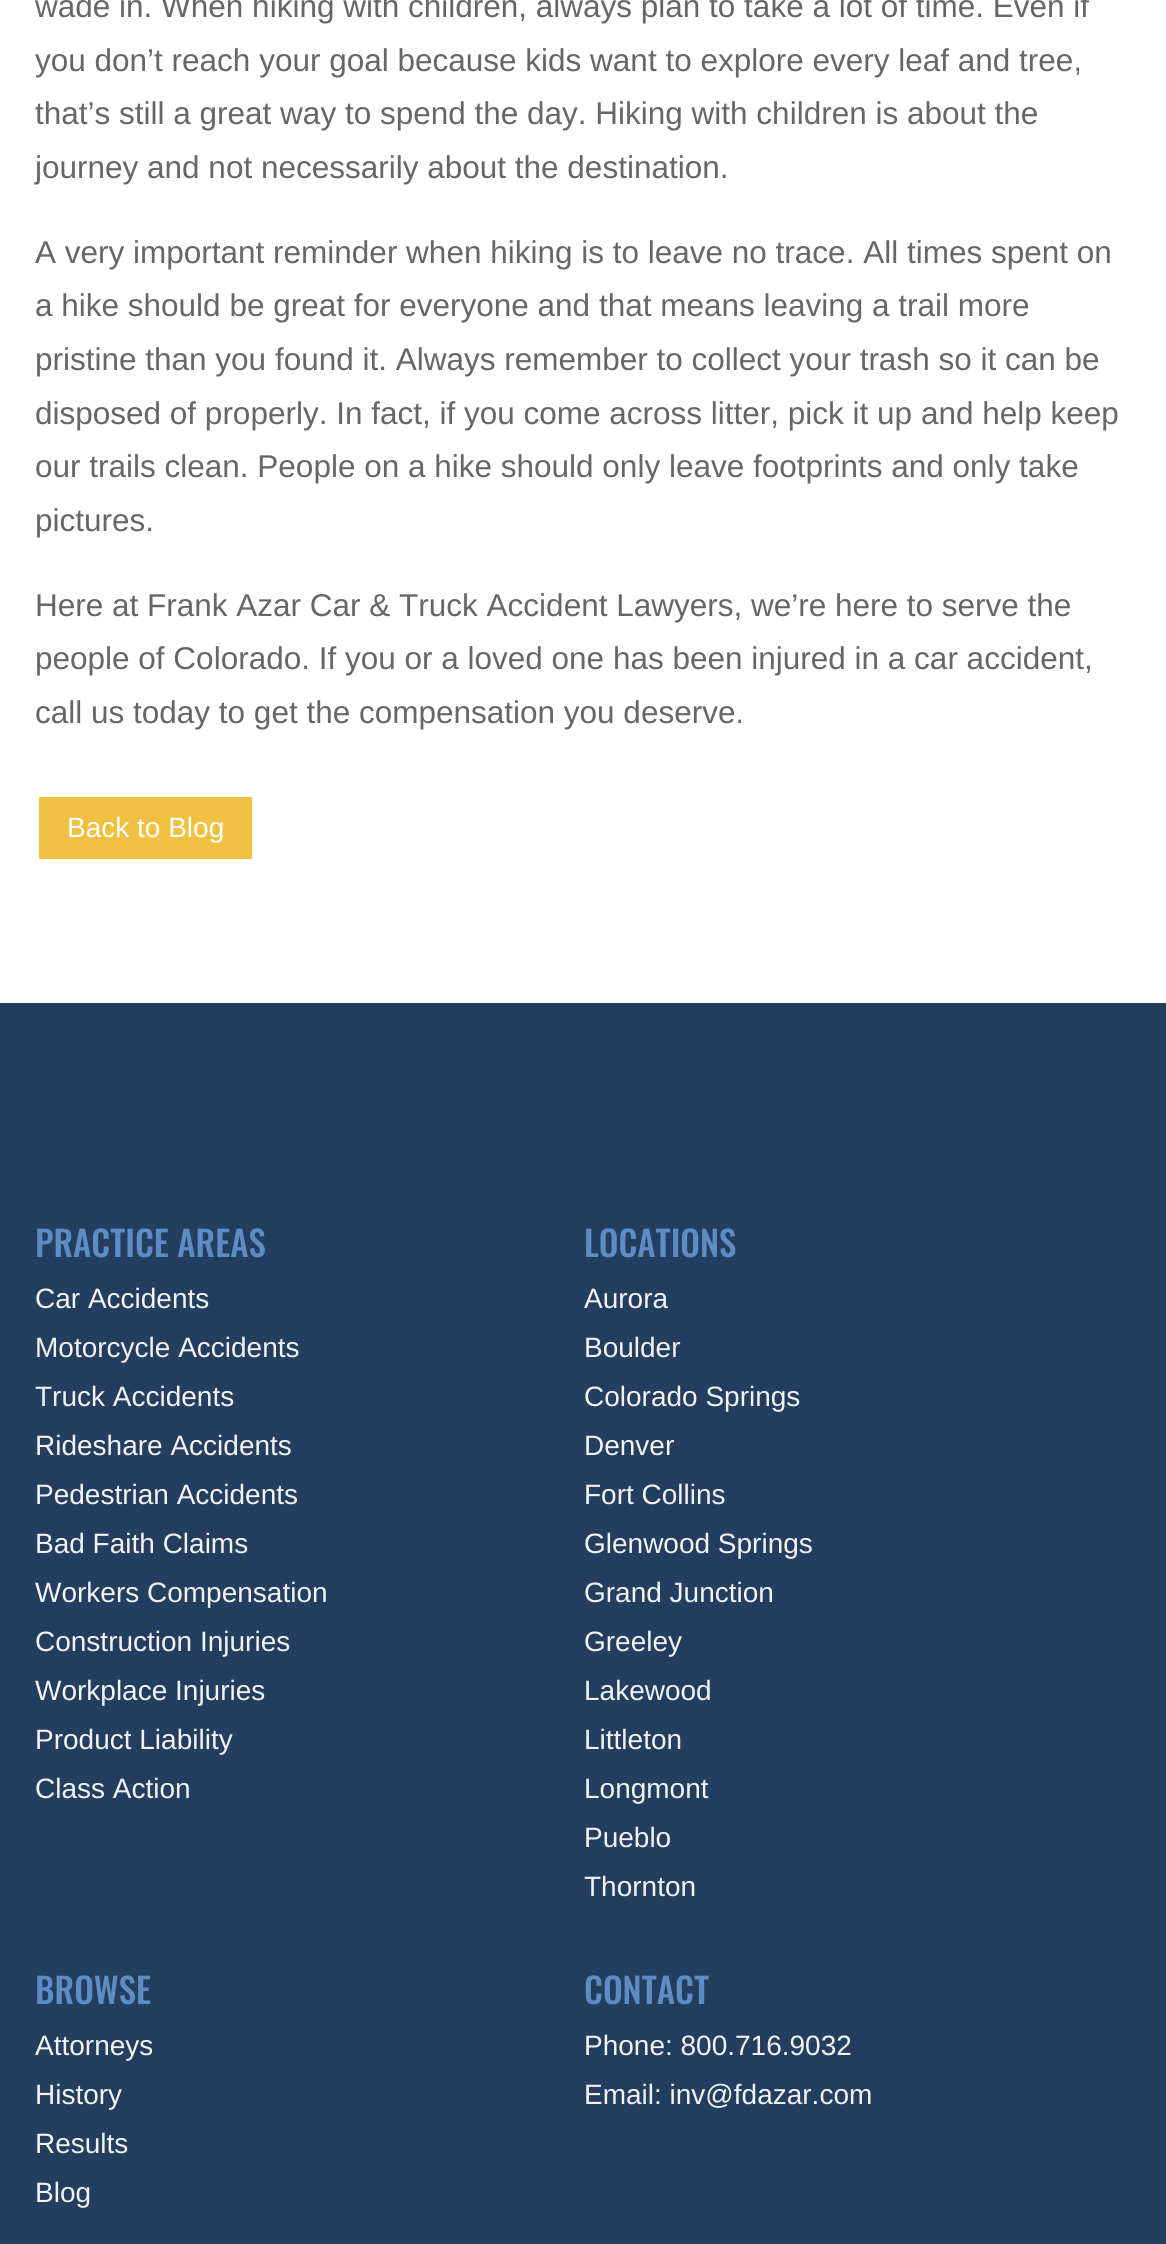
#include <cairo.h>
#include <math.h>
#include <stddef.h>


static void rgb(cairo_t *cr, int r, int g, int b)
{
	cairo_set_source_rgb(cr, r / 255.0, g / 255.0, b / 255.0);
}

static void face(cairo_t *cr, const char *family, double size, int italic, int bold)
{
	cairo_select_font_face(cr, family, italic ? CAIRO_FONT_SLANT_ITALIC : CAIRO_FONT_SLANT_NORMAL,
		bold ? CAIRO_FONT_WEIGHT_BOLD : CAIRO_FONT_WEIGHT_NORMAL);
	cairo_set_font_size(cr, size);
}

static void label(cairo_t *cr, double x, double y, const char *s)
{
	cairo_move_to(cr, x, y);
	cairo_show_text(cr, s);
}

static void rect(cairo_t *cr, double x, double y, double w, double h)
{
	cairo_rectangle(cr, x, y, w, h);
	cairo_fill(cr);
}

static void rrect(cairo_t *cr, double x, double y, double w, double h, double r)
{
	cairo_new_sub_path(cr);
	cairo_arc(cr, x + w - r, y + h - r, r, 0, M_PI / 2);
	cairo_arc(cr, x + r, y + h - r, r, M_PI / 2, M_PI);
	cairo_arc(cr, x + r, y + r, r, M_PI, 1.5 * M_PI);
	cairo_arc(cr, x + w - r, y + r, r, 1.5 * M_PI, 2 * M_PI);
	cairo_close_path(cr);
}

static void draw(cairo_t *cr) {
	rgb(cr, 255, 255, 255);
	cairo_paint(cr);
	face(cr, "Liberation Sans", 31.5, 0, 0);
	rgb(cr, 102, 102, 102);
	label(cr, 35, 17, "wade in. When hiking with children, always plan to take a lot of time. Even if");
	label(cr, 35, 71, "you don’t reach your goal because kids want to explore every leaf and tree,");
	label(cr, 35, 124, "that’s still a great way to spend the day. Hiking with children is about the");
	label(cr, 35, 178, "journey and not necessarily about the destination.");
	label(cr, 35, 263, "A very important reminder when hiking is to leave no trace. All times spent on");
	label(cr, 35, 316, "a hike should be great for everyone and that means leaving a trail more");
	label(cr, 35, 370, "pristine than you found it. Always remember to collect your trash so it can be");
	label(cr, 35, 424, "disposed of properly. In fact, if you come across litter, pick it up and help keep");
	label(cr, 35, 477, "our trails clean. People on a hike should only leave footprints and only take");
	label(cr, 35, 531, "pictures.");
	label(cr, 35, 616, "Here at Frank Azar Car & Truck Accident Lawyers, we’re here to serve the");
	label(cr, 35, 669, "people of Colorado. If you or a loved one has been injured in a car accident,");
	label(cr, 35, 723, "call us today to get the compensation you deserve.");
	rgb(cr, 240, 193, 65);
	rrect(cr, 37, 795, 217, 66, 3);
	cairo_fill_preserve(cr);
	rgb(cr, 255, 255, 255);
	cairo_set_line_width(cr, 4);
	cairo_stroke(cr);
	face(cr, "Liberation Sans", 28, 0, 0);
	label(cr, 67, 837, "Back to Blog");
	rgb(cr, 35, 62, 95);
	rect(cr, 0, 1003, 1166, 1241);
	face(cr, "Oswald Medium", 35, 0, 0);
	rgb(cr, 93, 141, 196);
	label(cr, 35, 1257, "PRACTICE AREAS");
	face(cr, "Liberation Sans", 28, 0, 0);
	rgb(cr, 243, 243, 243);
	label(cr, 35, 1308, "Car Accidents");
	label(cr, 35, 1357, "Motorcycle Accidents");
	label(cr, 35, 1406, "Truck Accidents");
	label(cr, 35, 1455, "Rideshare Accidents");
	label(cr, 35, 1504, "Pedestrian Accidents");
	label(cr, 35, 1553, "Bad Faith Claims");
	label(cr, 35, 1602, "Workers Compensation");
	label(cr, 35, 1651, "Construction Injuries");
	label(cr, 35, 1700, "Workplace Injuries");
	label(cr, 35, 1749, "Product Liability");
	label(cr, 35, 1798, "Class Action");
	face(cr, "Oswald Medium", 35, 0, 0);
	rgb(cr, 93, 141, 196);
	label(cr, 584, 1257, "LOCATIONS");
	face(cr, "Liberation Sans", 28, 0, 0);
	rgb(cr, 243, 243, 243);
	label(cr, 584, 1308, "Aurora");
	label(cr, 584, 1357, "Boulder");
	label(cr, 584, 1406, "Colorado Springs");
	label(cr, 584, 1455, "Denver");
	label(cr, 584, 1504, "Fort Collins");
	label(cr, 584, 1553, "Glenwood Springs");
	label(cr, 584, 1602, "Grand Junction");
	label(cr, 584, 1651, "Greeley");
	label(cr, 584, 1700, "Lakewood");
	label(cr, 584, 1749, "Littleton");
	label(cr, 584, 1798, "Longmont");
	label(cr, 584, 1847, "Pueblo");
	label(cr, 584, 1896, "Thornton");
	face(cr, "Oswald Medium", 35, 0, 0);
	rgb(cr, 93, 141, 196);
	label(cr, 35, 2004, "BROWSE");
	face(cr, "Liberation Sans", 28, 0, 0);
	rgb(cr, 243, 243, 243);
	label(cr, 35, 2055, "Attorneys");
	label(cr, 35, 2104, "History");
	label(cr, 35, 2153, "Results");
	label(cr, 35, 2202, "Blog");
	face(cr, "Oswald Medium", 35, 0, 0);
	rgb(cr, 93, 141, 196);
	label(cr, 584, 2004, "CONTACT");
	face(cr, "Liberation Sans", 28, 0, 0);
	rgb(cr, 243, 243, 243);
	label(cr, 584, 2055, "Phone: 800.716.9032");
	label(cr, 584, 2104, "Email: inv@fdazar.com");
}

int main(void) {
	cairo_surface_t *surface = cairo_image_surface_create(CAIRO_FORMAT_RGB24, 1166, 2244);
	cairo_t *cr = cairo_create(surface);
	cairo_font_options_t *options = cairo_font_options_create();
	cairo_font_options_set_hint_metrics(options, CAIRO_HINT_METRICS_OFF);
	cairo_font_options_set_hint_style(options, CAIRO_HINT_STYLE_NONE);
	cairo_set_font_options(cr, options);
	cairo_set_miter_limit(cr, 4);
	draw(cr);
	cairo_surface_write_to_png(surface, "render.png");
	cairo_font_options_destroy(options);
	cairo_destroy(cr);
	cairo_surface_destroy(surface);
	return 0;
}
